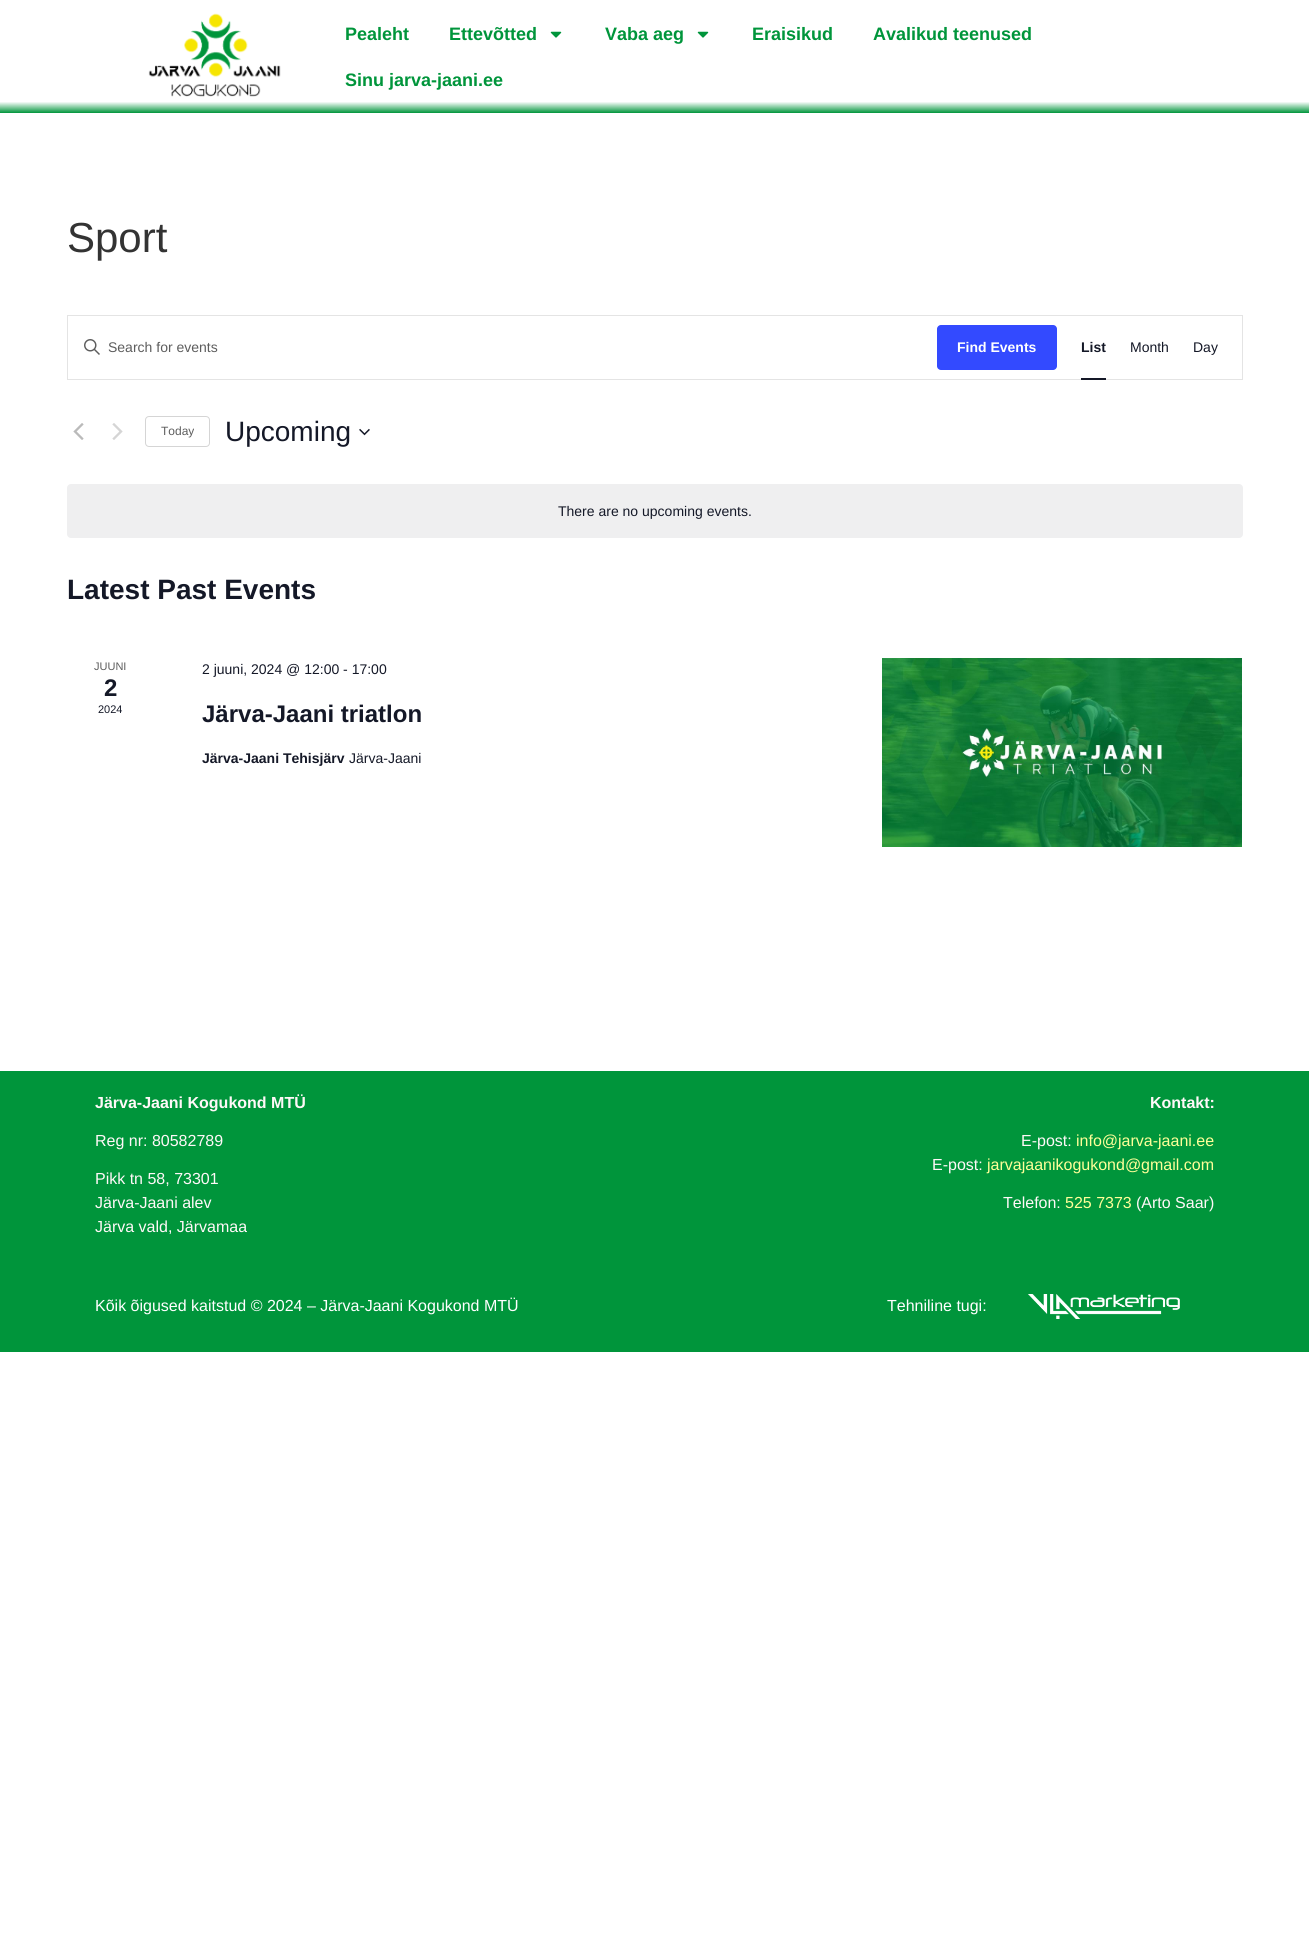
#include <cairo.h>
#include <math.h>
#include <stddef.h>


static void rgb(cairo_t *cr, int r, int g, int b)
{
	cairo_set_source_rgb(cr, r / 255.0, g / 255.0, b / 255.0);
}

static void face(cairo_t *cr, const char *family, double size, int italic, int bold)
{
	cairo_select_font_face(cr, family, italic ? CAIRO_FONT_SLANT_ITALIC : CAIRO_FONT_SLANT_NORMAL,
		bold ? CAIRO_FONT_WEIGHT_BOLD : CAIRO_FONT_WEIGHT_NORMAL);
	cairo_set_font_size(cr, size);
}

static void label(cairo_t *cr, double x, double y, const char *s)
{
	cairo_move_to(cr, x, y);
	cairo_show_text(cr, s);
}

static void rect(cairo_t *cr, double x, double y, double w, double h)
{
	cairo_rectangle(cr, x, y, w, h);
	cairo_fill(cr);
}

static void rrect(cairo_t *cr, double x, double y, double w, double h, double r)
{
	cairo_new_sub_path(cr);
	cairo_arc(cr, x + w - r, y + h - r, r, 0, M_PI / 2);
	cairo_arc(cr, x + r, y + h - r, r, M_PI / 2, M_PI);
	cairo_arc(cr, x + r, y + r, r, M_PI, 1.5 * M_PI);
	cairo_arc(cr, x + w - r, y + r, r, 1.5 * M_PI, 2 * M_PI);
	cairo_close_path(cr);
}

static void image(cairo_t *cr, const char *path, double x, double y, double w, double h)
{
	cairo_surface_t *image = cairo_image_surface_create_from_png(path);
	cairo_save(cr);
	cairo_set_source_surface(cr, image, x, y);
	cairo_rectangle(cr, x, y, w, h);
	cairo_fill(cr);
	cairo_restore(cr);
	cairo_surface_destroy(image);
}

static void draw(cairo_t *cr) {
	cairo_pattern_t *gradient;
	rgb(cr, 255, 255, 255);
	cairo_paint(cr);
	gradient = cairo_pattern_create_linear(655, 0, 655, 113);
	cairo_pattern_add_color_stop_rgba(gradient, 0.9, 1, 1, 1, 1);
	cairo_pattern_add_color_stop_rgba(gradient, 1, 0, 0.584, 0.231, 1);
	cairo_set_source(cr, gradient);
	cairo_pattern_destroy(gradient);
	rect(cr, 0, 102, 1309, 11);
	image(cr, "image0.png", 148, 13, 133, 84);
	face(cr, "Liberation Sans", 18, 0, 1);
	rgb(cr, 0, 149, 59);
	label(cr, 345, 40, "Pealeht");
	label(cr, 449, 40, "Ettevõtted");
	image(cr, "image1.png", 550, 31, 12, 7);
	label(cr, 605, 40, "Vaba aeg");
	image(cr, "image1.png", 697, 31, 12, 7);
	label(cr, 752, 40, "Eraisikud");
	label(cr, 873, 40, "Avalikud teenused");
	label(cr, 345, 86, "Sinu jarva-jaani.ee");
	face(cr, "Liberation Sans", 42, 0, 0);
	rgb(cr, 51, 51, 51);
	label(cr, 67, 252, "Sport");
	cairo_rectangle(cr, 67.5, 315.5, 1175, 64);
	rgb(cr, 228, 228, 228);
	cairo_set_line_width(cr, 1);
	cairo_stroke(cr);
	image(cr, "image2.png", 84, 339, 16, 16);
	face(cr, "Liberation Sans", 14, 0, 0);
	rgb(cr, 93, 93, 93);
	label(cr, 108, 352, "Search for events");
	rgb(cr, 51, 74, 255);
	rrect(cr, 937, 325, 120, 45, 4);
	cairo_fill(cr);
	face(cr, "Liberation Sans", 14, 0, 1);
	rgb(cr, 255, 255, 255);
	label(cr, 957, 352, "Find Events");
	rgb(cr, 20, 24, 39);
	label(cr, 1081, 352, "List");
	rect(cr, 1081, 378, 25, 2);
	face(cr, "Liberation Sans", 14, 0, 0);
	label(cr, 1130, 352, "Month");
	label(cr, 1193, 352, "Day");
	image(cr, "image3.png", 73, 423, 11, 17);
	image(cr, "image4.png", 112, 423, 11, 17);
	rrect(cr, 145.5, 416.5, 64, 30, 3.5);
	rgb(cr, 213, 213, 213);
	cairo_stroke(cr);
	face(cr, "Liberation Sans", 12, 0, 0);
	rgb(cr, 93, 93, 93);
	label(cr, 161, 435, "Today");
	face(cr, "Liberation Sans", 28, 0, 0);
	rgb(cr, 20, 24, 39);
	label(cr, 225, 441, "Upcoming");
	image(cr, "image5.png", 359, 428, 11, 8);
	rgb(cr, 239, 239, 240);
	rrect(cr, 67, 484, 1176, 54, 4);
	cairo_fill(cr);
	face(cr, "Liberation Sans", 14, 0, 0);
	rgb(cr, 20, 24, 39);
	label(cr, 558, 516, "There are no upcoming events.");
	face(cr, "Liberation Sans", 28, 0, 1);
	label(cr, 67, 599, "Latest Past Events");
	face(cr, "Liberation Sans", 11, 0, 0);
	rgb(cr, 93, 93, 93);
	label(cr, 94, 670, "JUUNI");
	face(cr, "Liberation Sans", 24, 0, 1);
	rgb(cr, 20, 24, 39);
	label(cr, 104, 696, "2");
	face(cr, "Liberation Sans", 11, 0, 0);
	label(cr, 98, 713, "2024");
	face(cr, "Liberation Sans", 14, 0, 0);
	label(cr, 202, 674, "2 juuni, 2024 @ 12:00 - 17:00");
	face(cr, "Liberation Sans", 24, 0, 1);
	label(cr, 202, 722, "Järva-Jaani triatlon");
	face(cr, "Liberation Sans", 14, 0, 1);
	label(cr, 202, 763, "Järva-Jaani Tehisjärv");
	face(cr, "Liberation Sans", 14, 0, 0);
	label(cr, 349, 763, "Järva-Jaani");
	image(cr, "image6.png", 882, 658, 360, 189);
	rgb(cr, 0, 149, 59);
	rect(cr, 0, 1071, 1309, 281);
	face(cr, "Liberation Sans", 16, 0, 1);
	rgb(cr, 255, 248, 248);
	label(cr, 95, 1108, "Järva-Jaani Kogukond MTÜ");
	face(cr, "Liberation Sans", 16, 0, 0);
	label(cr, 95, 1146, "Reg nr: 80582789");
	label(cr, 95, 1184, "Pikk tn 58, 73301");
	label(cr, 95, 1208, "Järva-Jaani alev");
	label(cr, 95, 1232, "Järva vald, Järvamaa");
	face(cr, "Liberation Sans", 16, 0, 1);
	label(cr, 1150, 1108, "Kontakt:");
	face(cr, "Liberation Sans", 16, 0, 0);
	label(cr, 1021, 1146, "E-post:");
	rgb(cr, 255, 255, 153);
	label(cr, 1076, 1146, "info@jarva-jaani.ee");
	rgb(cr, 255, 248, 248);
	label(cr, 932, 1170, "E-post:");
	rgb(cr, 255, 255, 153);
	label(cr, 987, 1170, "jarvajaanikogukond@gmail.com");
	rgb(cr, 255, 248, 248);
	label(cr, 1003, 1208, "Telefon:");
	rgb(cr, 255, 255, 153);
	label(cr, 1065, 1208, "525 7373");
	rgb(cr, 255, 248, 248);
	label(cr, 1136, 1208, "(Arto Saar)");
	rgb(cr, 255, 255, 255);
	label(cr, 95, 1311, "Kõik õigused kaitstud © 2024 – Järva-Jaani Kogukond MTÜ");
	label(cr, 887, 1311, "Tehniline tugi:");
	image(cr, "image7.png", 1028, 1294, 152, 25);
}

int main(void) {
	cairo_surface_t *surface = cairo_image_surface_create(CAIRO_FORMAT_RGB24, 1309, 1955);
	cairo_t *cr = cairo_create(surface);
	cairo_font_options_t *options = cairo_font_options_create();
	cairo_font_options_set_hint_metrics(options, CAIRO_HINT_METRICS_OFF);
	cairo_font_options_set_hint_style(options, CAIRO_HINT_STYLE_NONE);
	cairo_set_font_options(cr, options);
	cairo_set_miter_limit(cr, 4);
	draw(cr);
	cairo_surface_write_to_png(surface, "render.png");
	cairo_font_options_destroy(options);
	cairo_destroy(cr);
	cairo_surface_destroy(surface);
	return 0;
}
